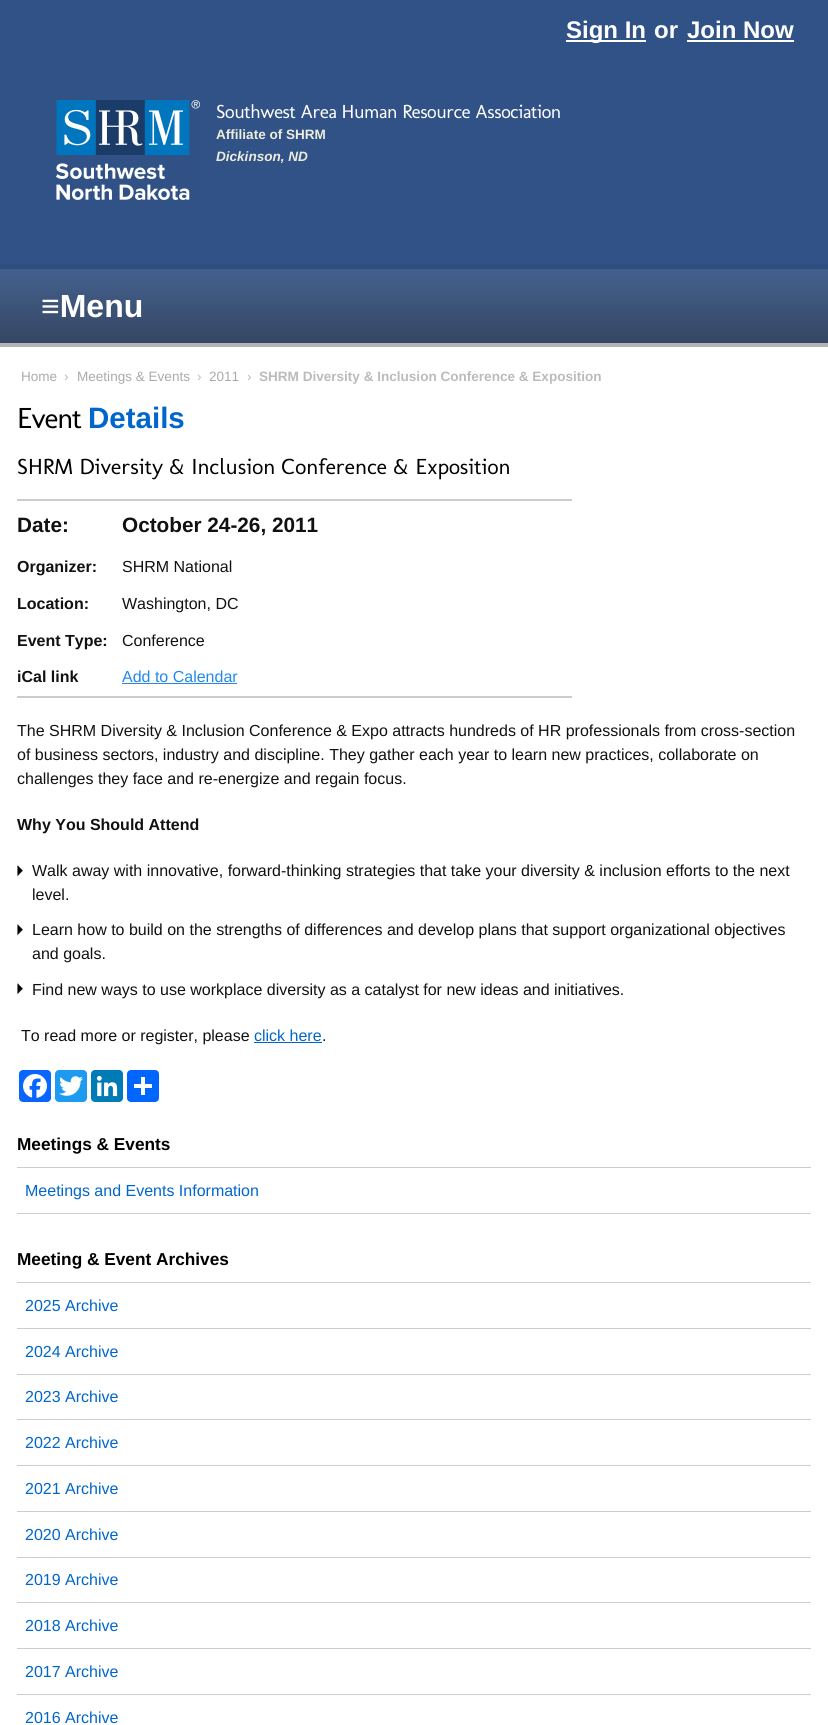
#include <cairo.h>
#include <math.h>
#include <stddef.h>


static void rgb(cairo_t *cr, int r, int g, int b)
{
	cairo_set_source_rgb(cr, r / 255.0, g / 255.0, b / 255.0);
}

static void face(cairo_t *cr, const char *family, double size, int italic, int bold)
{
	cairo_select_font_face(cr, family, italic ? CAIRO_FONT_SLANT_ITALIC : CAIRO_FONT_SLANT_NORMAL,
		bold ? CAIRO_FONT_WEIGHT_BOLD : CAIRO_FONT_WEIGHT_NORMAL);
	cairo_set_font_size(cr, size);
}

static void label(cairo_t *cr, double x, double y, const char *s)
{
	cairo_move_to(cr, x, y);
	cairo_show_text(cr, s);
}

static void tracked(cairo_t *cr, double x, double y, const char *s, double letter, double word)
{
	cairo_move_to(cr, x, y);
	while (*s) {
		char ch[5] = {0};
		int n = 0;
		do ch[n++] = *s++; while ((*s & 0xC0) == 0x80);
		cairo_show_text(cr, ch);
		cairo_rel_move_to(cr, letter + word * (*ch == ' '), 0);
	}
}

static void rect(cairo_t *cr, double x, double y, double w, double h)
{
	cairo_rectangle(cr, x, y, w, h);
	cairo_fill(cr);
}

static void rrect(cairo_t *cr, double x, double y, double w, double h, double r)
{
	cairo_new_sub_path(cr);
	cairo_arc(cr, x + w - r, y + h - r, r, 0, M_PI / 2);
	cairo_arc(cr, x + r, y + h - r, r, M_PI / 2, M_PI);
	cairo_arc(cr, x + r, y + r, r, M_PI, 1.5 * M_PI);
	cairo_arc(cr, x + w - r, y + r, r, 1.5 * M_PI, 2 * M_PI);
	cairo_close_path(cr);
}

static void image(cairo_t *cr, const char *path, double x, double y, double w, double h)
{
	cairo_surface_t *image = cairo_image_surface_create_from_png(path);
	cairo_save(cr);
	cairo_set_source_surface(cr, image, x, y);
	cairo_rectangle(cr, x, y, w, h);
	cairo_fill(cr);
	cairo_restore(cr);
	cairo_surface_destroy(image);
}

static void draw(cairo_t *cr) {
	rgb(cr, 255, 255, 255);
	cairo_paint(cr);
	rgb(cr, 49, 82, 134);
	rect(cr, 0, 0, 828, 269);
	rgb(cr, 70, 99, 146);
	rect(cr, 0, 269, 828, 74);
	image(cr, "image0.png", 0, 264, 828, 79);
	rgb(cr, 179, 179, 179);
	rect(cr, 0, 343, 828, 4);
	rgb(cr, 255, 255, 255);
	rect(cr, 566, 40, 80, 2);
	face(cr, "Liberation Sans", 24, 0, 1);
	label(cr, 566, 38, "Sign In");
	label(cr, 654, 38, "or");
	label(cr, 687, 38, "Join Now");
	rect(cr, 687, 40, 107, 2);
	image(cr, "image1.png", 56, 100, 144, 100);
	face(cr, "Molengo", 19.25, 0, 0);
	tracked(cr, 216, 118, "Southwest Area Human Resource Association", -0.4, 0);
	face(cr, "Liberation Sans", 13.55, 0, 1);
	rgb(cr, 236, 237, 220);
	label(cr, 216, 139, "Affiliate of SHRM");
	face(cr, "Liberation Sans", 13.55, 1, 1);
	label(cr, 216, 161, "Dickinson, ND");
	face(cr, "Liberation Sans", 32, 0, 1);
	rgb(cr, 255, 255, 255);
	label(cr, 41, 317, "≡Menu");
	face(cr, "Liberation Sans", 13.55, 0, 0);
	rgb(cr, 170, 170, 170);
	label(cr, 21, 381, "Home");
	rgb(cr, 187, 187, 187);
	label(cr, 64, 381, "›");
	rgb(cr, 170, 170, 170);
	label(cr, 77, 381, "Meetings & Events");
	rgb(cr, 187, 187, 187);
	label(cr, 197, 381, "›");
	rgb(cr, 170, 170, 170);
	label(cr, 209, 381, "2011");
	rgb(cr, 187, 187, 187);
	label(cr, 247, 381, "›");
	face(cr, "Liberation Sans", 13.55, 0, 1);
	label(cr, 259, 381, "SHRM Diversity & Inclusion Conference & Exposition");
	face(cr, "Molengo", 29.5, 0, 0);
	rgb(cr, 0, 0, 0);
	tracked(cr, 17, 428, "Event", -1, 0);
	face(cr, "Liberation Sans", 29.5, 0, 1);
	rgb(cr, 0, 102, 204);
	label(cr, 88, 428, "Details");
	face(cr, "Molengo", 22.2, 0, 0);
	rgb(cr, 0, 0, 0);
	label(cr, 17, 474, "SHRM Diversity & Inclusion Conference & Exposition");
	rgb(cr, 204, 204, 204);
	rect(cr, 17, 499, 555, 2);
	rect(cr, 17, 696, 555, 2);
	face(cr, "Liberation Sans", 20.75, 0, 1);
	rgb(cr, 17, 17, 17);
	label(cr, 17, 532, "Date:");
	label(cr, 122, 532, "October 24-26, 2011");
	face(cr, "Liberation Sans", 16, 0, 1);
	label(cr, 17, 572, "Organizer:");
	face(cr, "Liberation Sans", 16, 0, 0);
	label(cr, 122, 572, "SHRM National");
	face(cr, "Liberation Sans", 16, 0, 1);
	label(cr, 17, 609, "Location:");
	face(cr, "Liberation Sans", 16, 0, 0);
	label(cr, 122, 609, "Washington, DC");
	face(cr, "Liberation Sans", 16, 0, 1);
	label(cr, 17, 646, "Event Type:");
	face(cr, "Liberation Sans", 16, 0, 0);
	label(cr, 122, 646, "Conference");
	face(cr, "Liberation Sans", 16, 0, 1);
	label(cr, 17, 682, "iCal link");
	face(cr, "Liberation Sans", 16, 0, 0);
	rgb(cr, 34, 136, 238);
	label(cr, 122, 682, "Add to Calendar");
	rect(cr, 122, 683, 115, 1);
	rgb(cr, 17, 17, 17);
	label(cr, 17, 736, "The SHRM Diversity & Inclusion Conference & Expo attracts hundreds of HR professionals from cross-section");
	label(cr, 17, 760, "of business sectors, industry and discipline. They gather each year to learn new practices, collaborate on");
	label(cr, 17, 784, "challenges they face and re-energize and regain focus.");
	face(cr, "Liberation Sans", 16, 0, 1);
	label(cr, 17, 830, "Why You Should Attend");
	image(cr, "image2.png", 17, 865, 6, 12);
	face(cr, "Liberation Sans", 16, 0, 0);
	label(cr, 32, 876, "Walk away with innovative, forward-thinking strategies that take your diversity & inclusion efforts to the next");
	label(cr, 32, 900, "level.");
	image(cr, "image2.png", 17, 924, 6, 12);
	label(cr, 32, 935, "Learn how to build on the strengths of differences and develop plans that support organizational objectives");
	label(cr, 32, 959, "and goals.");
	image(cr, "image2.png", 17, 983, 6, 12);
	label(cr, 32, 995, "Find new ways to use workplace diversity as a catalyst for new ideas and initiatives.");
	label(cr, 21, 1041, "To read more or register, please");
	rgb(cr, 0, 102, 204);
	label(cr, 254, 1041, "click here");
	rect(cr, 254, 1042, 68, 1);
	rgb(cr, 17, 17, 17);
	label(cr, 322, 1041, ".");
	rgb(cr, 8, 102, 255);
	rrect(cr, 19, 1070, 32, 32, 4);
	cairo_fill(cr);
	image(cr, "image3.png", 23, 1074, 24, 24);
	rgb(cr, 29, 155, 240);
	rrect(cr, 55, 1070, 32, 32, 4);
	cairo_fill(cr);
	image(cr, "image4.png", 59, 1076, 24, 20);
	rgb(cr, 0, 123, 181);
	rrect(cr, 91, 1070, 32, 32, 4);
	cairo_fill(cr);
	image(cr, "image5.png", 96, 1075, 22, 22);
	rgb(cr, 1, 102, 255);
	rrect(cr, 127, 1070, 32, 32, 4);
	cairo_fill(cr);
	rgb(cr, 255, 255, 255);
	rect(cr, 141, 1077, 4, 18);
	rect(cr, 134, 1084, 18, 4);
	face(cr, "Liberation Sans", 17.25, 0, 1);
	rgb(cr, 0, 0, 0);
	label(cr, 17, 1150, "Meetings & Events");
	rgb(cr, 204, 204, 204);
	rect(cr, 17, 1167, 794, 1);
	rect(cr, 17, 1213, 794, 1);
	face(cr, "Liberation Sans", 16, 0, 0);
	rgb(cr, 0, 102, 204);
	label(cr, 25, 1196, "Meetings and Events Information");
	face(cr, "Liberation Sans", 17.25, 0, 1);
	rgb(cr, 0, 0, 0);
	label(cr, 17, 1265, "Meeting & Event Archives");
	rgb(cr, 204, 204, 204);
	rect(cr, 17, 1282, 794, 1);
	rect(cr, 17, 1328, 794, 1);
	face(cr, "Liberation Sans", 16, 0, 0);
	rgb(cr, 0, 102, 204);
	label(cr, 25, 1311, "2025 Archive");
	rgb(cr, 204, 204, 204);
	rect(cr, 17, 1374, 794, 1);
	rgb(cr, 0, 102, 204);
	label(cr, 25, 1357, "2024 Archive");
	rgb(cr, 204, 204, 204);
	rect(cr, 17, 1419, 794, 1);
	rgb(cr, 0, 102, 204);
	label(cr, 25, 1402, "2023 Archive");
	rgb(cr, 204, 204, 204);
	rect(cr, 17, 1465, 794, 1);
	rgb(cr, 0, 102, 204);
	label(cr, 25, 1448, "2022 Archive");
	rgb(cr, 204, 204, 204);
	rect(cr, 17, 1511, 794, 1);
	rgb(cr, 0, 102, 204);
	label(cr, 25, 1494, "2021 Archive");
	rgb(cr, 204, 204, 204);
	rect(cr, 17, 1557, 794, 1);
	rgb(cr, 0, 102, 204);
	label(cr, 25, 1540, "2020 Archive");
	rgb(cr, 204, 204, 204);
	rect(cr, 17, 1602, 794, 1);
	rgb(cr, 0, 102, 204);
	label(cr, 25, 1585, "2019 Archive");
	rgb(cr, 204, 204, 204);
	rect(cr, 17, 1648, 794, 1);
	rgb(cr, 0, 102, 204);
	label(cr, 25, 1631, "2018 Archive");
	rgb(cr, 204, 204, 204);
	rect(cr, 17, 1694, 794, 1);
	rgb(cr, 0, 102, 204);
	label(cr, 25, 1677, "2017 Archive");
	label(cr, 25, 1723, "2016 Archive");
}

int main(void) {
	cairo_surface_t *surface = cairo_image_surface_create(CAIRO_FORMAT_RGB24, 828, 1725);
	cairo_t *cr = cairo_create(surface);
	cairo_font_options_t *options = cairo_font_options_create();
	cairo_font_options_set_hint_metrics(options, CAIRO_HINT_METRICS_OFF);
	cairo_font_options_set_hint_style(options, CAIRO_HINT_STYLE_NONE);
	cairo_set_font_options(cr, options);
	cairo_set_miter_limit(cr, 4);
	draw(cr);
	cairo_surface_write_to_png(surface, "render.png");
	cairo_font_options_destroy(options);
	cairo_destroy(cr);
	cairo_surface_destroy(surface);
	return 0;
}
